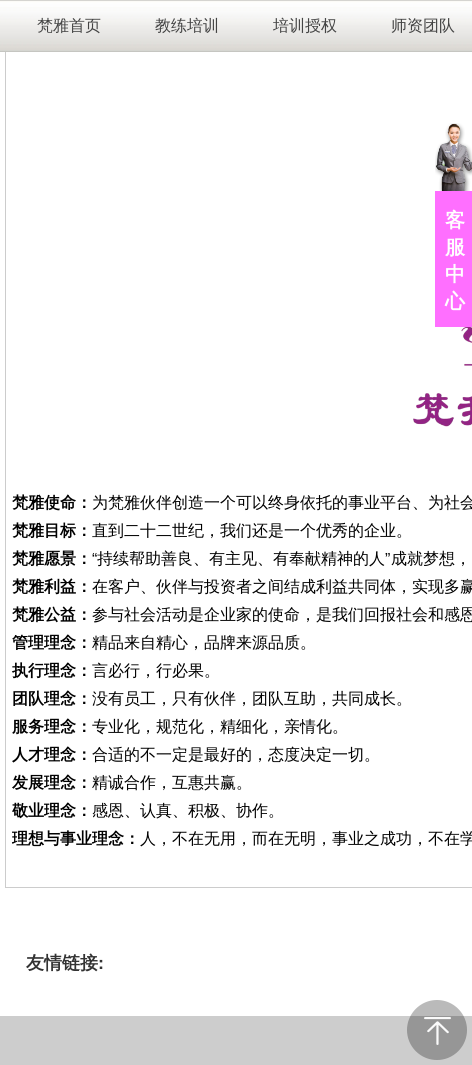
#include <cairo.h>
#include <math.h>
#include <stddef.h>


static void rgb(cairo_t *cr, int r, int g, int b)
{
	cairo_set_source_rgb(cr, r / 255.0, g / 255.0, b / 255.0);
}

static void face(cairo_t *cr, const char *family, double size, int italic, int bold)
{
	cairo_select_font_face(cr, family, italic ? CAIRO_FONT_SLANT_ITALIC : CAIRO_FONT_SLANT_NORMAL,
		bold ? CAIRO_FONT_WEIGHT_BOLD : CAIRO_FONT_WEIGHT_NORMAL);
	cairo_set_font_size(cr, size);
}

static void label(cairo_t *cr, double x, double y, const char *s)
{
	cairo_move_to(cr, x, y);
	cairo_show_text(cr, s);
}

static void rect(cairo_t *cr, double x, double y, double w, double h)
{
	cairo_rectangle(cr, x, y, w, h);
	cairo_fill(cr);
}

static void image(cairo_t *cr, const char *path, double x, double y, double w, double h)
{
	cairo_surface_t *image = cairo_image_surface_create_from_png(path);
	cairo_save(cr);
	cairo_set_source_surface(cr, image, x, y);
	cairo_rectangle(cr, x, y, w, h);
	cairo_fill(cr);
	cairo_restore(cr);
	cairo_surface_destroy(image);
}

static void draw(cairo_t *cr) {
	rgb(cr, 255, 255, 255);
	cairo_paint(cr);
	cairo_rectangle(cr, 5.5, -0.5, 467, 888);
	rgb(cr, 204, 204, 204);
	cairo_set_line_width(cr, 1);
	cairo_stroke(cr);
	image(cr, "image0.png", 0, 0, 472, 52);
	face(cr, "WenQuanYi Zen Hei Medium", 16, 0, 0);
	rgb(cr, 68, 68, 68);
	label(cr, 37, 31, "梵雅首页");
	label(cr, 155, 31, "教练培训");
	label(cr, 273, 31, "培训授权");
	label(cr, 391, 31, "师资团队");
	image(cr, "image1.png", 435, 123, 37, 68);
	rgb(cr, 255, 111, 255);
	rect(cr, 435, 191, 37, 136);
	face(cr, "WenQuanYi Zen Hei", 20, 0, 1);
	rgb(cr, 255, 255, 255);
	label(cr, 445, 227, "客");
	label(cr, 445, 254, "服");
	label(cr, 445, 281, "中");
	label(cr, 445, 308, "心");
	image(cr, "image2.png", 413, 327, 59, 100);
	face(cr, "WenQuanYi Zen Hei", 16, 0, 1);
	rgb(cr, 0, 0, 0);
	label(cr, 12, 508, "梵雅使命：");
	face(cr, "WenQuanYi Zen Hei Medium", 16, 0, 0);
	label(cr, 92, 508, "为梵雅伙伴创造一个可以终身依托的事业平台、为社会");
	face(cr, "WenQuanYi Zen Hei", 16, 0, 1);
	label(cr, 12, 536, "梵雅目标：");
	face(cr, "WenQuanYi Zen Hei Medium", 16, 0, 0);
	label(cr, 92, 536, "直到二十二世纪，我们还是一个优秀的企业。");
	face(cr, "WenQuanYi Zen Hei", 16, 0, 1);
	label(cr, 12, 564, "梵雅愿景：");
	face(cr, "Liberation Sans", 16, 0, 0);
	label(cr, 92, 564, "“");
	face(cr, "WenQuanYi Zen Hei Medium", 16, 0, 0);
	label(cr, 97, 564, "持续帮助善良、有主见、有奉献精神的人");
	face(cr, "Liberation Sans", 16, 0, 0);
	label(cr, 385, 564, "”");
	face(cr, "WenQuanYi Zen Hei Medium", 16, 0, 0);
	label(cr, 391, 564, "成就梦想，");
	face(cr, "WenQuanYi Zen Hei", 16, 0, 1);
	label(cr, 12, 592, "梵雅利益：");
	face(cr, "WenQuanYi Zen Hei Medium", 16, 0, 0);
	label(cr, 92, 592, "在客户、伙伴与投资者之间结成利益共同体，实现多赢");
	face(cr, "WenQuanYi Zen Hei", 16, 0, 1);
	label(cr, 12, 620, "梵雅公益：");
	face(cr, "WenQuanYi Zen Hei Medium", 16, 0, 0);
	label(cr, 92, 620, "参与社会活动是企业家的使命，是我们回报社会和感恩");
	face(cr, "WenQuanYi Zen Hei", 16, 0, 1);
	label(cr, 12, 648, "管理理念：");
	face(cr, "WenQuanYi Zen Hei Medium", 16, 0, 0);
	label(cr, 92, 648, "精品来自精心，品牌来源品质。");
	face(cr, "WenQuanYi Zen Hei", 16, 0, 1);
	label(cr, 12, 676, "执行理念：");
	face(cr, "WenQuanYi Zen Hei Medium", 16, 0, 0);
	label(cr, 92, 676, "言必行，行必果。");
	face(cr, "WenQuanYi Zen Hei", 16, 0, 1);
	label(cr, 12, 704, "团队理念：");
	face(cr, "WenQuanYi Zen Hei Medium", 16, 0, 0);
	label(cr, 92, 704, "没有员工，只有伙伴，团队互助，共同成长。");
	face(cr, "WenQuanYi Zen Hei", 16, 0, 1);
	label(cr, 12, 732, "服务理念：");
	face(cr, "WenQuanYi Zen Hei Medium", 16, 0, 0);
	label(cr, 92, 732, "专业化，规范化，精细化，亲情化。");
	face(cr, "WenQuanYi Zen Hei", 16, 0, 1);
	label(cr, 12, 760, "人才理念：");
	face(cr, "WenQuanYi Zen Hei Medium", 16, 0, 0);
	label(cr, 92, 760, "合适的不一定是最好的，态度决定一切。");
	face(cr, "WenQuanYi Zen Hei", 16, 0, 1);
	label(cr, 12, 788, "发展理念：");
	face(cr, "WenQuanYi Zen Hei Medium", 16, 0, 0);
	label(cr, 92, 788, "精诚合作，互惠共赢。");
	face(cr, "WenQuanYi Zen Hei", 16, 0, 1);
	label(cr, 12, 816, "敬业理念：");
	face(cr, "WenQuanYi Zen Hei Medium", 16, 0, 0);
	label(cr, 92, 816, "感恩、认真、积极、协作。");
	face(cr, "WenQuanYi Zen Hei", 16, 0, 1);
	label(cr, 12, 844, "理想与事业理念：");
	face(cr, "WenQuanYi Zen Hei Medium", 16, 0, 0);
	label(cr, 140, 844, "人，不在无用，而在无明，事业之成功，不在学");
	image(cr, "image3.png", 0, 893, 472, 172);
	face(cr, "WenQuanYi Zen Hei", 18, 0, 1);
	rgb(cr, 51, 51, 51);
	label(cr, 26, 969, "友情链接");
	face(cr, "Liberation Sans", 18, 0, 1);
	label(cr, 98, 969, ":");
	image(cr, "image4.png", 407, 1000, 60, 60);
}

int main(void) {
	cairo_surface_t *surface = cairo_image_surface_create(CAIRO_FORMAT_RGB24, 472, 1065);
	cairo_t *cr = cairo_create(surface);
	cairo_font_options_t *options = cairo_font_options_create();
	cairo_font_options_set_hint_metrics(options, CAIRO_HINT_METRICS_OFF);
	cairo_font_options_set_hint_style(options, CAIRO_HINT_STYLE_NONE);
	cairo_set_font_options(cr, options);
	cairo_set_miter_limit(cr, 4);
	draw(cr);
	cairo_surface_write_to_png(surface, "render.png");
	cairo_font_options_destroy(options);
	cairo_destroy(cr);
	cairo_surface_destroy(surface);
	return 0;
}
